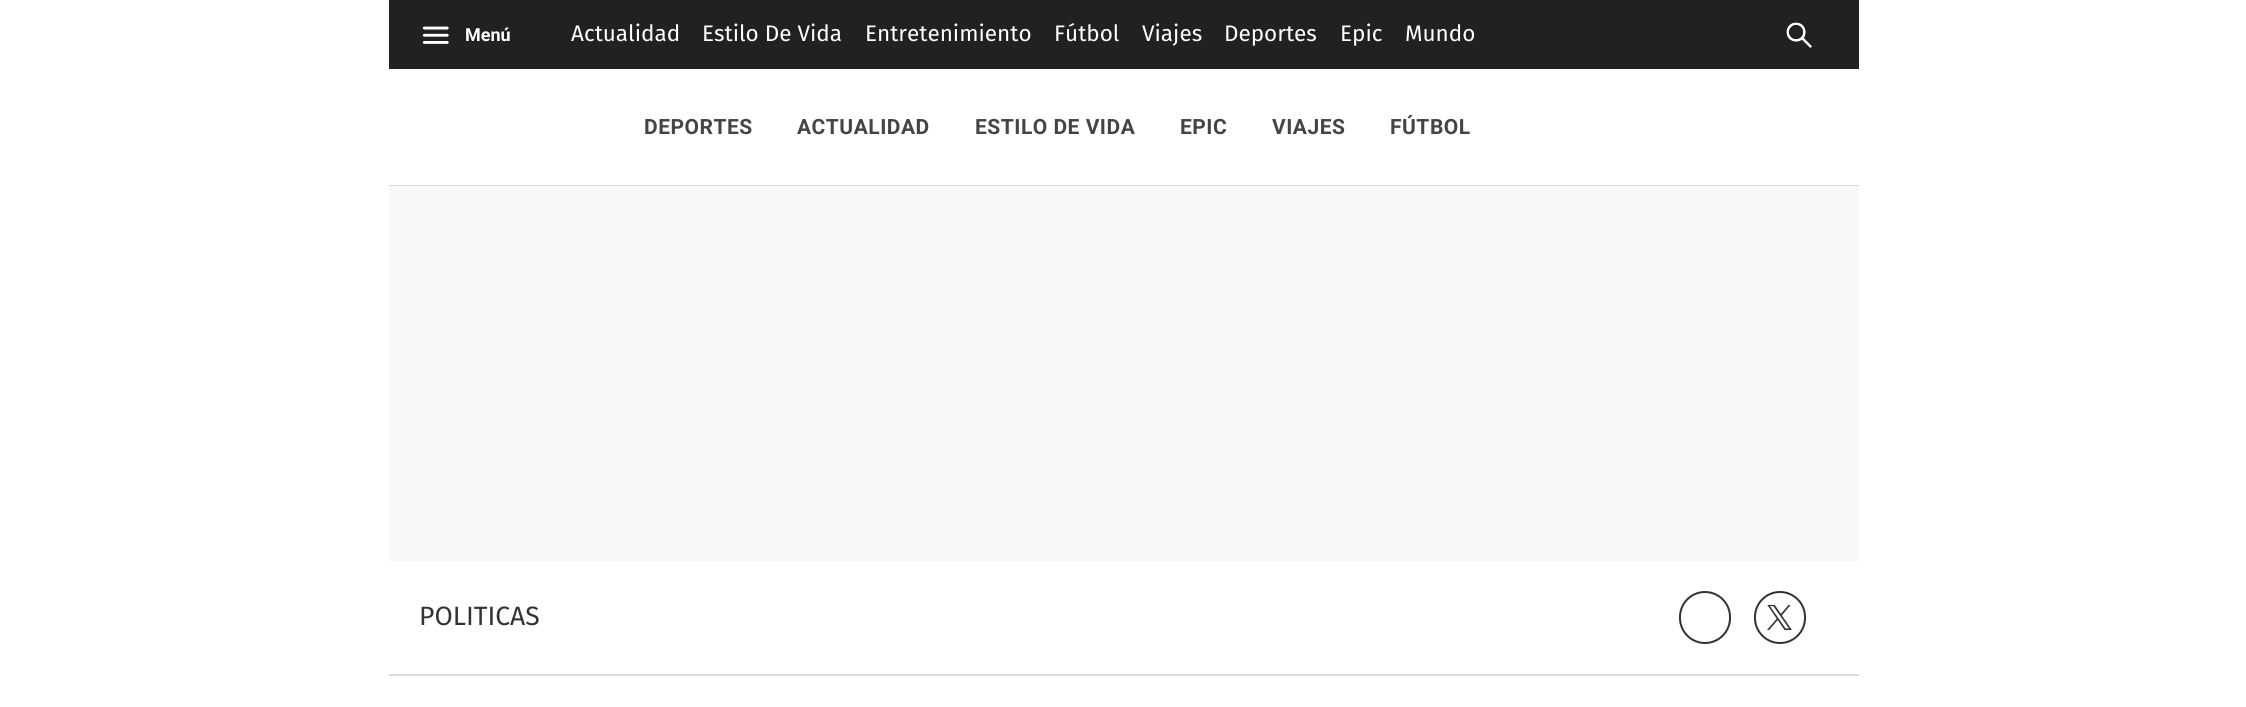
#include <cairo.h>
#include <math.h>
#include <stddef.h>


static void rgb(cairo_t *cr, int r, int g, int b)
{
	cairo_set_source_rgb(cr, r / 255.0, g / 255.0, b / 255.0);
}

static void face(cairo_t *cr, const char *family, double size, int italic, int bold)
{
	cairo_select_font_face(cr, family, italic ? CAIRO_FONT_SLANT_ITALIC : CAIRO_FONT_SLANT_NORMAL,
		bold ? CAIRO_FONT_WEIGHT_BOLD : CAIRO_FONT_WEIGHT_NORMAL);
	cairo_set_font_size(cr, size);
}

static void label(cairo_t *cr, double x, double y, const char *s)
{
	cairo_move_to(cr, x, y);
	cairo_show_text(cr, s);
}

static void tracked(cairo_t *cr, double x, double y, const char *s, double letter, double word)
{
	cairo_move_to(cr, x, y);
	while (*s) {
		char ch[5] = {0};
		int n = 0;
		do ch[n++] = *s++; while ((*s & 0xC0) == 0x80);
		cairo_show_text(cr, ch);
		cairo_rel_move_to(cr, letter + word * (*ch == ' '), 0);
	}
}

static void rect(cairo_t *cr, double x, double y, double w, double h)
{
	cairo_rectangle(cr, x, y, w, h);
	cairo_fill(cr);
}

static void rrect(cairo_t *cr, double x, double y, double w, double h, double r)
{
	cairo_new_sub_path(cr);
	cairo_arc(cr, x + w - r, y + h - r, r, 0, M_PI / 2);
	cairo_arc(cr, x + r, y + h - r, r, M_PI / 2, M_PI);
	cairo_arc(cr, x + r, y + r, r, M_PI, 1.5 * M_PI);
	cairo_arc(cr, x + w - r, y + r, r, 1.5 * M_PI, 2 * M_PI);
	cairo_close_path(cr);
}

static void image(cairo_t *cr, const char *path, double x, double y, double w, double h)
{
	cairo_surface_t *image = cairo_image_surface_create_from_png(path);
	cairo_save(cr);
	cairo_set_source_surface(cr, image, x, y);
	cairo_rectangle(cr, x, y, w, h);
	cairo_fill(cr);
	cairo_restore(cr);
	cairo_surface_destroy(image);
}

static void draw(cairo_t *cr) {
	rgb(cr, 255, 255, 255);
	cairo_paint(cr);
	rgb(cr, 33, 33, 33);
	rect(cr, 389, 0, 1470, 69);
	image(cr, "image0.png", 422, 26, 27, 18);
	face(cr, "Roboto", 18, 0, 1);
	rgb(cr, 255, 255, 255);
	label(cr, 465, 41, "Menú");
	face(cr, "Fira Sans", 22.5, 0, 0);
	label(cr, 571, 41, "Actualidad");
	label(cr, 702, 41, "Estilo De Vida");
	label(cr, 865, 41, "Entretenimiento");
	label(cr, 1054, 41, "Fútbol");
	label(cr, 1142, 41, "Viajes");
	label(cr, 1224, 41, "Deportes");
	label(cr, 1340, 41, "Epic");
	label(cr, 1405, 41, "Mundo");
	image(cr, "image1.png", 1786, 22, 26, 26);
	rgb(cr, 218, 218, 218);
	rect(cr, 389, 185, 1470, 1);
	face(cr, "Roboto", 21, 0, 1);
	rgb(cr, 68, 68, 68);
	tracked(cr, 644, 134, "DEPORTES", 0.5, 0);
	tracked(cr, 797, 134, "ACTUALIDAD", 0.5, 0);
	tracked(cr, 975, 134, "ESTILO DE VIDA", 0.5, 0);
	tracked(cr, 1180, 134, "EPIC", 0.5, 0);
	tracked(cr, 1272, 134, "VIAJES", 0.5, 0);
	tracked(cr, 1390, 134, "FÚTBOL", 0.5, 0);
	rgb(cr, 247, 248, 249);
	rect(cr, 389, 186, 1470, 375);
	rgb(cr, 218, 218, 218);
	rect(cr, 389, 674, 1470, 2);
	cairo_save(cr);
	cairo_rectangle(cr, 419, 605, 120, 25);
	cairo_clip(cr);
	face(cr, "Fira Sans", 26.5, 0, 0);
	rgb(cr, 51, 51, 51);
	label(cr, 419, 625, "POLÍTICAS");
	cairo_restore(cr);
	rrect(cr, 1680, 592, 50, 51, 25);
	rgb(cr, 51, 51, 51);
	cairo_stroke(cr);
	rrect(cr, 1755, 592, 50, 51, 25);
	cairo_stroke(cr);
	image(cr, "image2.png", 1767, 605, 25, 25);
}

int main(void) {
	cairo_surface_t *surface = cairo_image_surface_create(CAIRO_FORMAT_RGB24, 2246, 707);
	cairo_t *cr = cairo_create(surface);
	cairo_font_options_t *options = cairo_font_options_create();
	cairo_font_options_set_hint_metrics(options, CAIRO_HINT_METRICS_OFF);
	cairo_font_options_set_hint_style(options, CAIRO_HINT_STYLE_NONE);
	cairo_set_font_options(cr, options);
	cairo_set_miter_limit(cr, 4);
	draw(cr);
	cairo_surface_write_to_png(surface, "render.png");
	cairo_font_options_destroy(options);
	cairo_destroy(cr);
	cairo_surface_destroy(surface);
	return 0;
}
